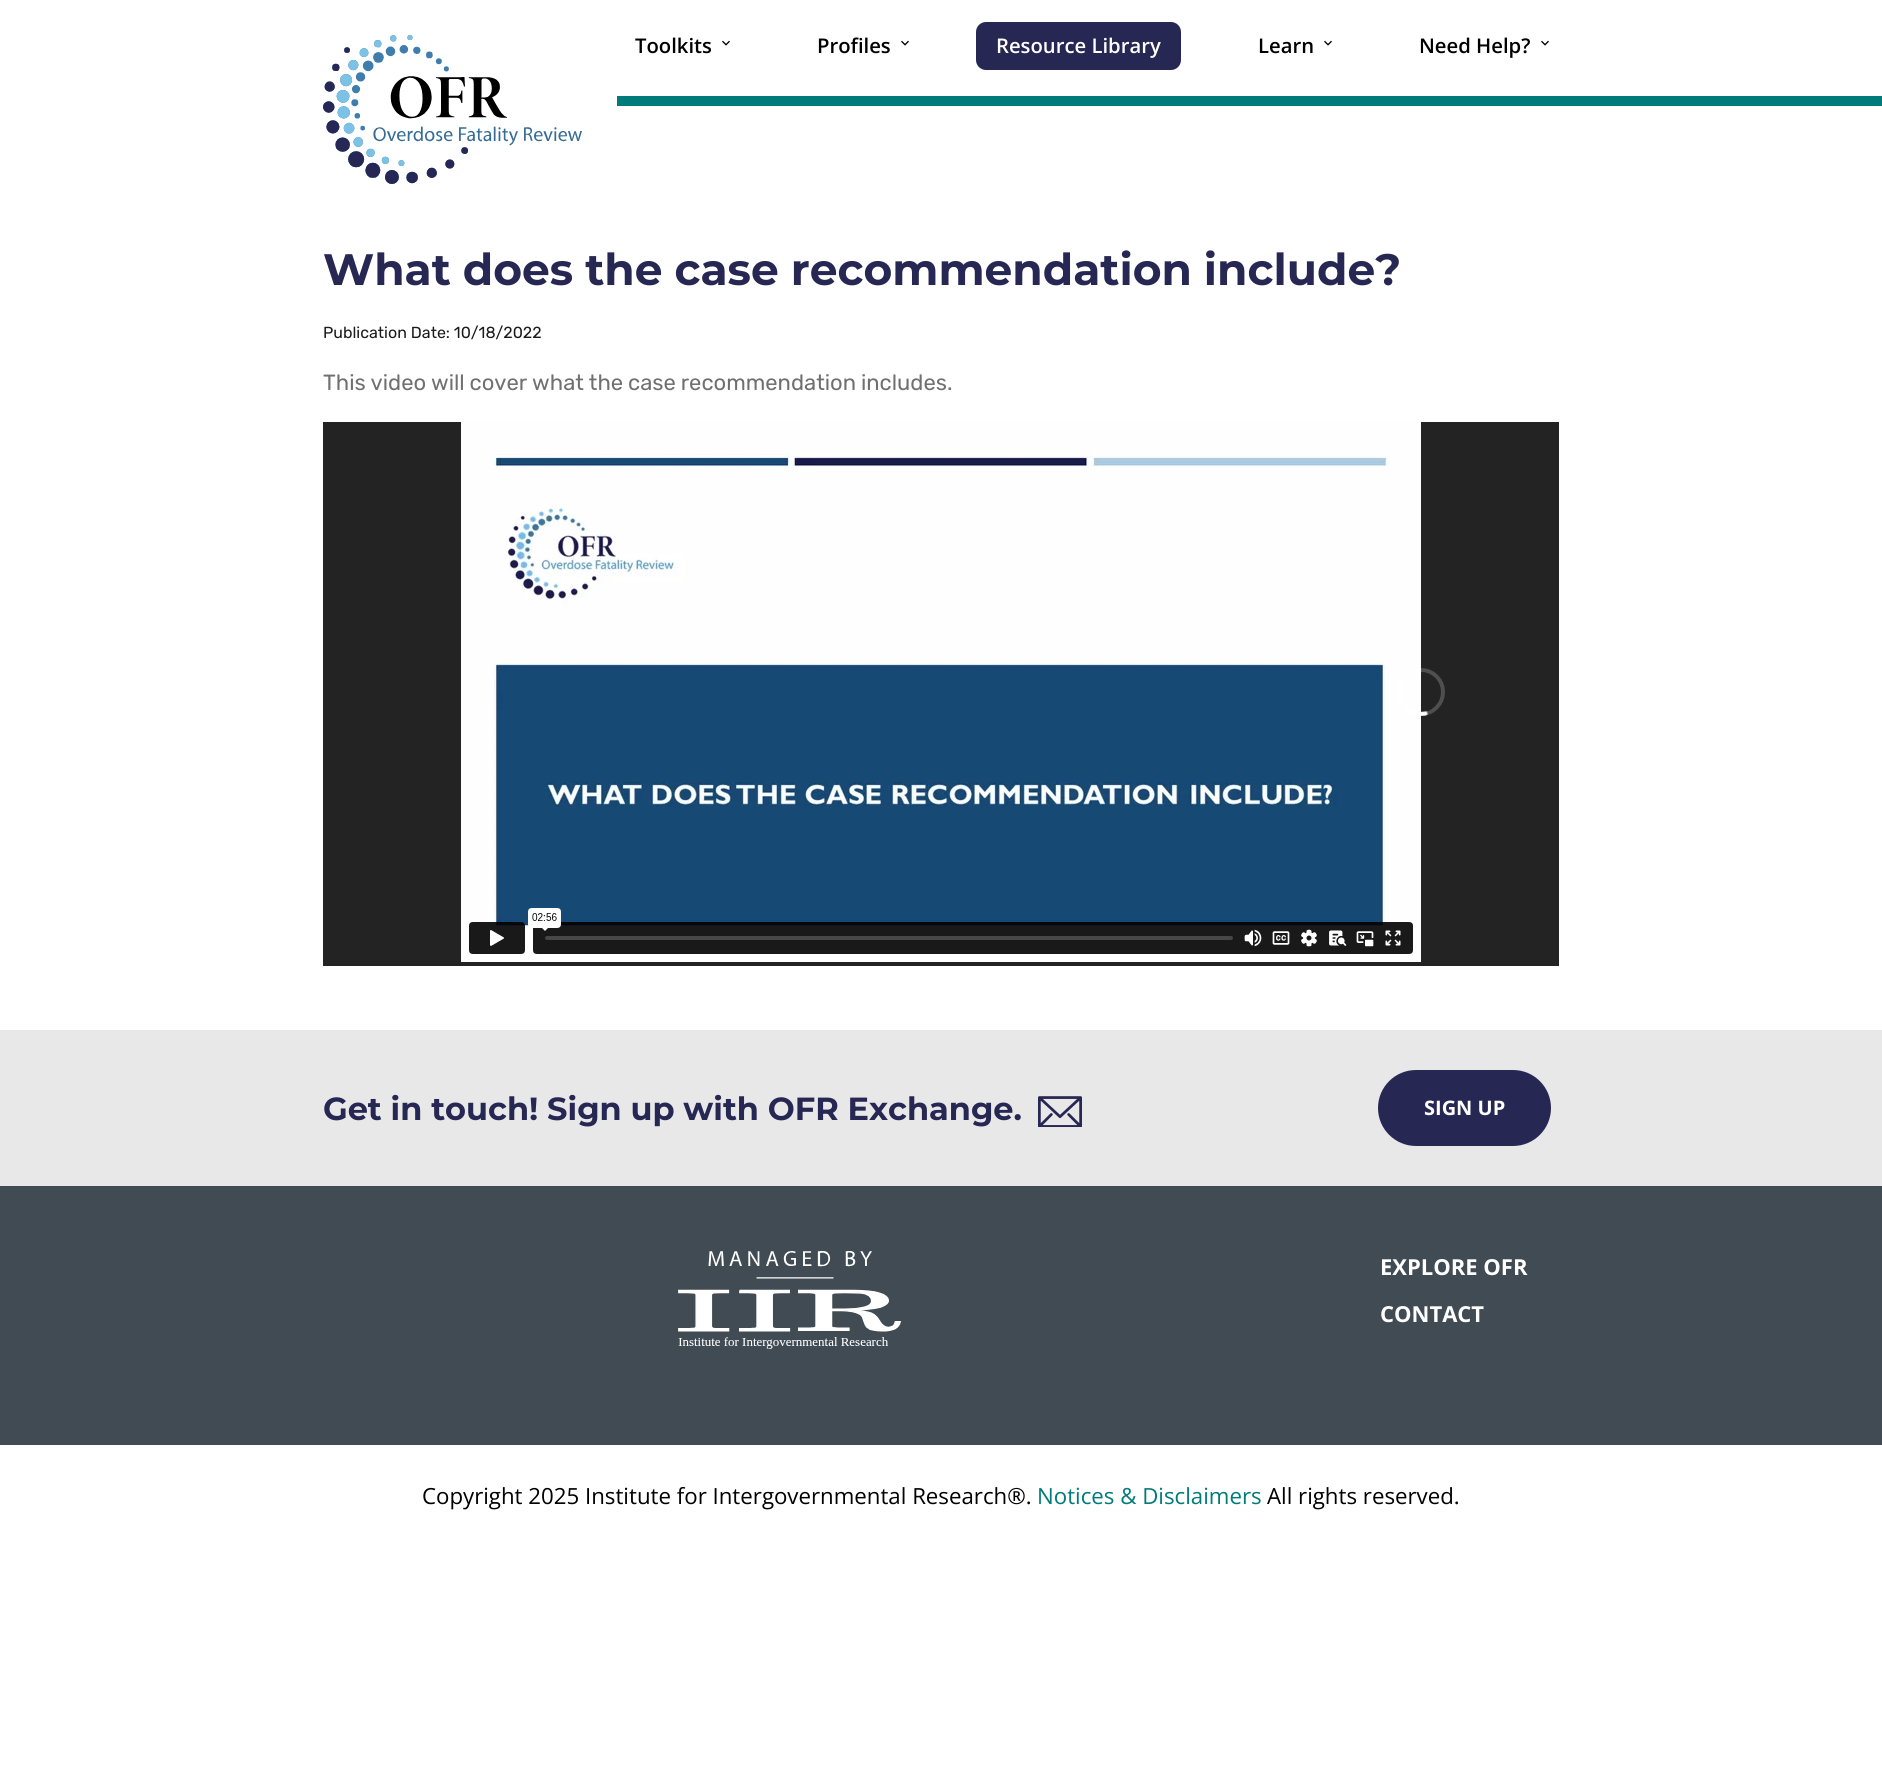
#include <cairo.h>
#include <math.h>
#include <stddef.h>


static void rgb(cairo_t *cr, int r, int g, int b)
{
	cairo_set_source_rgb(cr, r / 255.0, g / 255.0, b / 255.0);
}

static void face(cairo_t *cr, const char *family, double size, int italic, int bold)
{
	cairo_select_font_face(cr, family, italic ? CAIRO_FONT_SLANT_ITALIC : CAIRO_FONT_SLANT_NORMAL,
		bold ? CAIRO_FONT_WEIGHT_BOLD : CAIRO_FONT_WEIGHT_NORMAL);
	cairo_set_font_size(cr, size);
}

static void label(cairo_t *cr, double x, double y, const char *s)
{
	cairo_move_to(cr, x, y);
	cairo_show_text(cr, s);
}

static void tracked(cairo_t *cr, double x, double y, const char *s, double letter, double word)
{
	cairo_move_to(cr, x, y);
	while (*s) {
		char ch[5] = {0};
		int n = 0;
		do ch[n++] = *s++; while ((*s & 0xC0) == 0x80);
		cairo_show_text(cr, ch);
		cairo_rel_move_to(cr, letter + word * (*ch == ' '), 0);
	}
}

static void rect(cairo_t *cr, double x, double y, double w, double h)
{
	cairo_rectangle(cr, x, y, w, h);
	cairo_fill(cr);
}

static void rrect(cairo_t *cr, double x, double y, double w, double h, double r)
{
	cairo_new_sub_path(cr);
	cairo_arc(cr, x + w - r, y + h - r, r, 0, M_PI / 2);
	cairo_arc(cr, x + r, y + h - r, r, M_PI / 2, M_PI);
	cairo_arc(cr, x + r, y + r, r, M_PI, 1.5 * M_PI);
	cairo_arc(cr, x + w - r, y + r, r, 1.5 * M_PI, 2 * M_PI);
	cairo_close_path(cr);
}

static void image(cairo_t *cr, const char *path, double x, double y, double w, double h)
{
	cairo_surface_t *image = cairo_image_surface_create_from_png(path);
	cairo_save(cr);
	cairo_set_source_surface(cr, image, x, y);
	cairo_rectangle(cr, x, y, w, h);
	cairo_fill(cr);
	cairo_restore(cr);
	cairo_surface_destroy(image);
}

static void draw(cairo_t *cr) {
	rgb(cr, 255, 255, 255);
	cairo_paint(cr);
	image(cr, "image0.png", 323, 35, 259, 149);
	face(cr, "Open Sans SemiBold", 20.25, 0, 0);
	rgb(cr, 0, 0, 0);
	label(cr, 635, 53, "Toolkits");
	image(cr, "image1.png", 722, 40, 8, 6);
	label(cr, 817, 53, "Profiles");
	image(cr, "image1.png", 901, 40, 8, 6);
	rgb(cr, 39, 39, 84);
	rrect(cr, 976, 22, 205, 48, 10);
	cairo_fill(cr);
	rgb(cr, 255, 255, 255);
	label(cr, 996, 53, "Resource Library");
	rgb(cr, 0, 0, 0);
	label(cr, 1258, 53, "Learn");
	image(cr, "image1.png", 1324, 40, 8, 6);
	label(cr, 1419, 53, "Need Help?");
	image(cr, "image1.png", 1541, 40, 8, 6);
	rgb(cr, 0, 123, 122);
	rect(cr, 617, 96, 1265, 10);
	face(cr, "Montserrat", 44, 0, 1);
	rgb(cr, 39, 39, 84);
	tracked(cr, 323, 285, "What does the case recommendation include?", 0, -0.5);
	face(cr, "Rubik", 16, 0, 0);
	rgb(cr, 27, 27, 27);
	label(cr, 323, 338, "Publication Date: 10/18/2022");
	face(cr, "Rubik", 22, 0, 0);
	rgb(cr, 112, 112, 112);
	tracked(cr, 323, 390, "This video will cover what the case recommendation includes.", 0, -0.5);
	rgb(cr, 36, 35, 35);
	rect(cr, 323, 422, 1236, 544);
	image(cr, "image2.png", 461, 422, 984, 540);
	rgb(cr, 232, 232, 232);
	rect(cr, 0, 1030, 1882, 156);
	face(cr, "Montserrat", 32, 0, 1);
	rgb(cr, 39, 39, 84);
	tracked(cr, 323, 1120, "Get in touch! Sign up with OFR Exchange.", 0, -0.25);
	image(cr, "image3.png", 1038, 1096, 44, 31);
	rrect(cr, 1378, 1070, 173, 76, 38);
	cairo_fill(cr);
	face(cr, "Open Sans", 20, 0, 1);
	rgb(cr, 255, 255, 255);
	label(cr, 1424, 1115, "SIGN UP");
	rgb(cr, 65, 75, 83);
	rect(cr, 0, 1186, 1882, 259);
	image(cr, "image4.png", 678, 1251, 223, 98);
	face(cr, "Open Sans", 22, 0, 1);
	rgb(cr, 255, 255, 255);
	label(cr, 1380, 1275, "EXPLORE OFR");
	label(cr, 1380, 1322, "CONTACT");
	face(cr, "Open Sans", 22.25, 0, 0);
	rgb(cr, 0, 0, 0);
	label(cr, 422, 1504, "Copyright 2025 Institute for Intergovernmental Research®.");
	rgb(cr, 0, 123, 122);
	label(cr, 1037, 1504, "Notices & Disclaimers");
	rgb(cr, 0, 0, 0);
	label(cr, 1267, 1504, "All rights reserved.");
}

int main(void) {
	cairo_surface_t *surface = cairo_image_surface_create(CAIRO_FORMAT_RGB24, 1882, 1780);
	cairo_t *cr = cairo_create(surface);
	cairo_font_options_t *options = cairo_font_options_create();
	cairo_font_options_set_hint_metrics(options, CAIRO_HINT_METRICS_OFF);
	cairo_font_options_set_hint_style(options, CAIRO_HINT_STYLE_NONE);
	cairo_set_font_options(cr, options);
	cairo_set_miter_limit(cr, 4);
	draw(cr);
	cairo_surface_write_to_png(surface, "render.png");
	cairo_font_options_destroy(options);
	cairo_destroy(cr);
	cairo_surface_destroy(surface);
	return 0;
}
